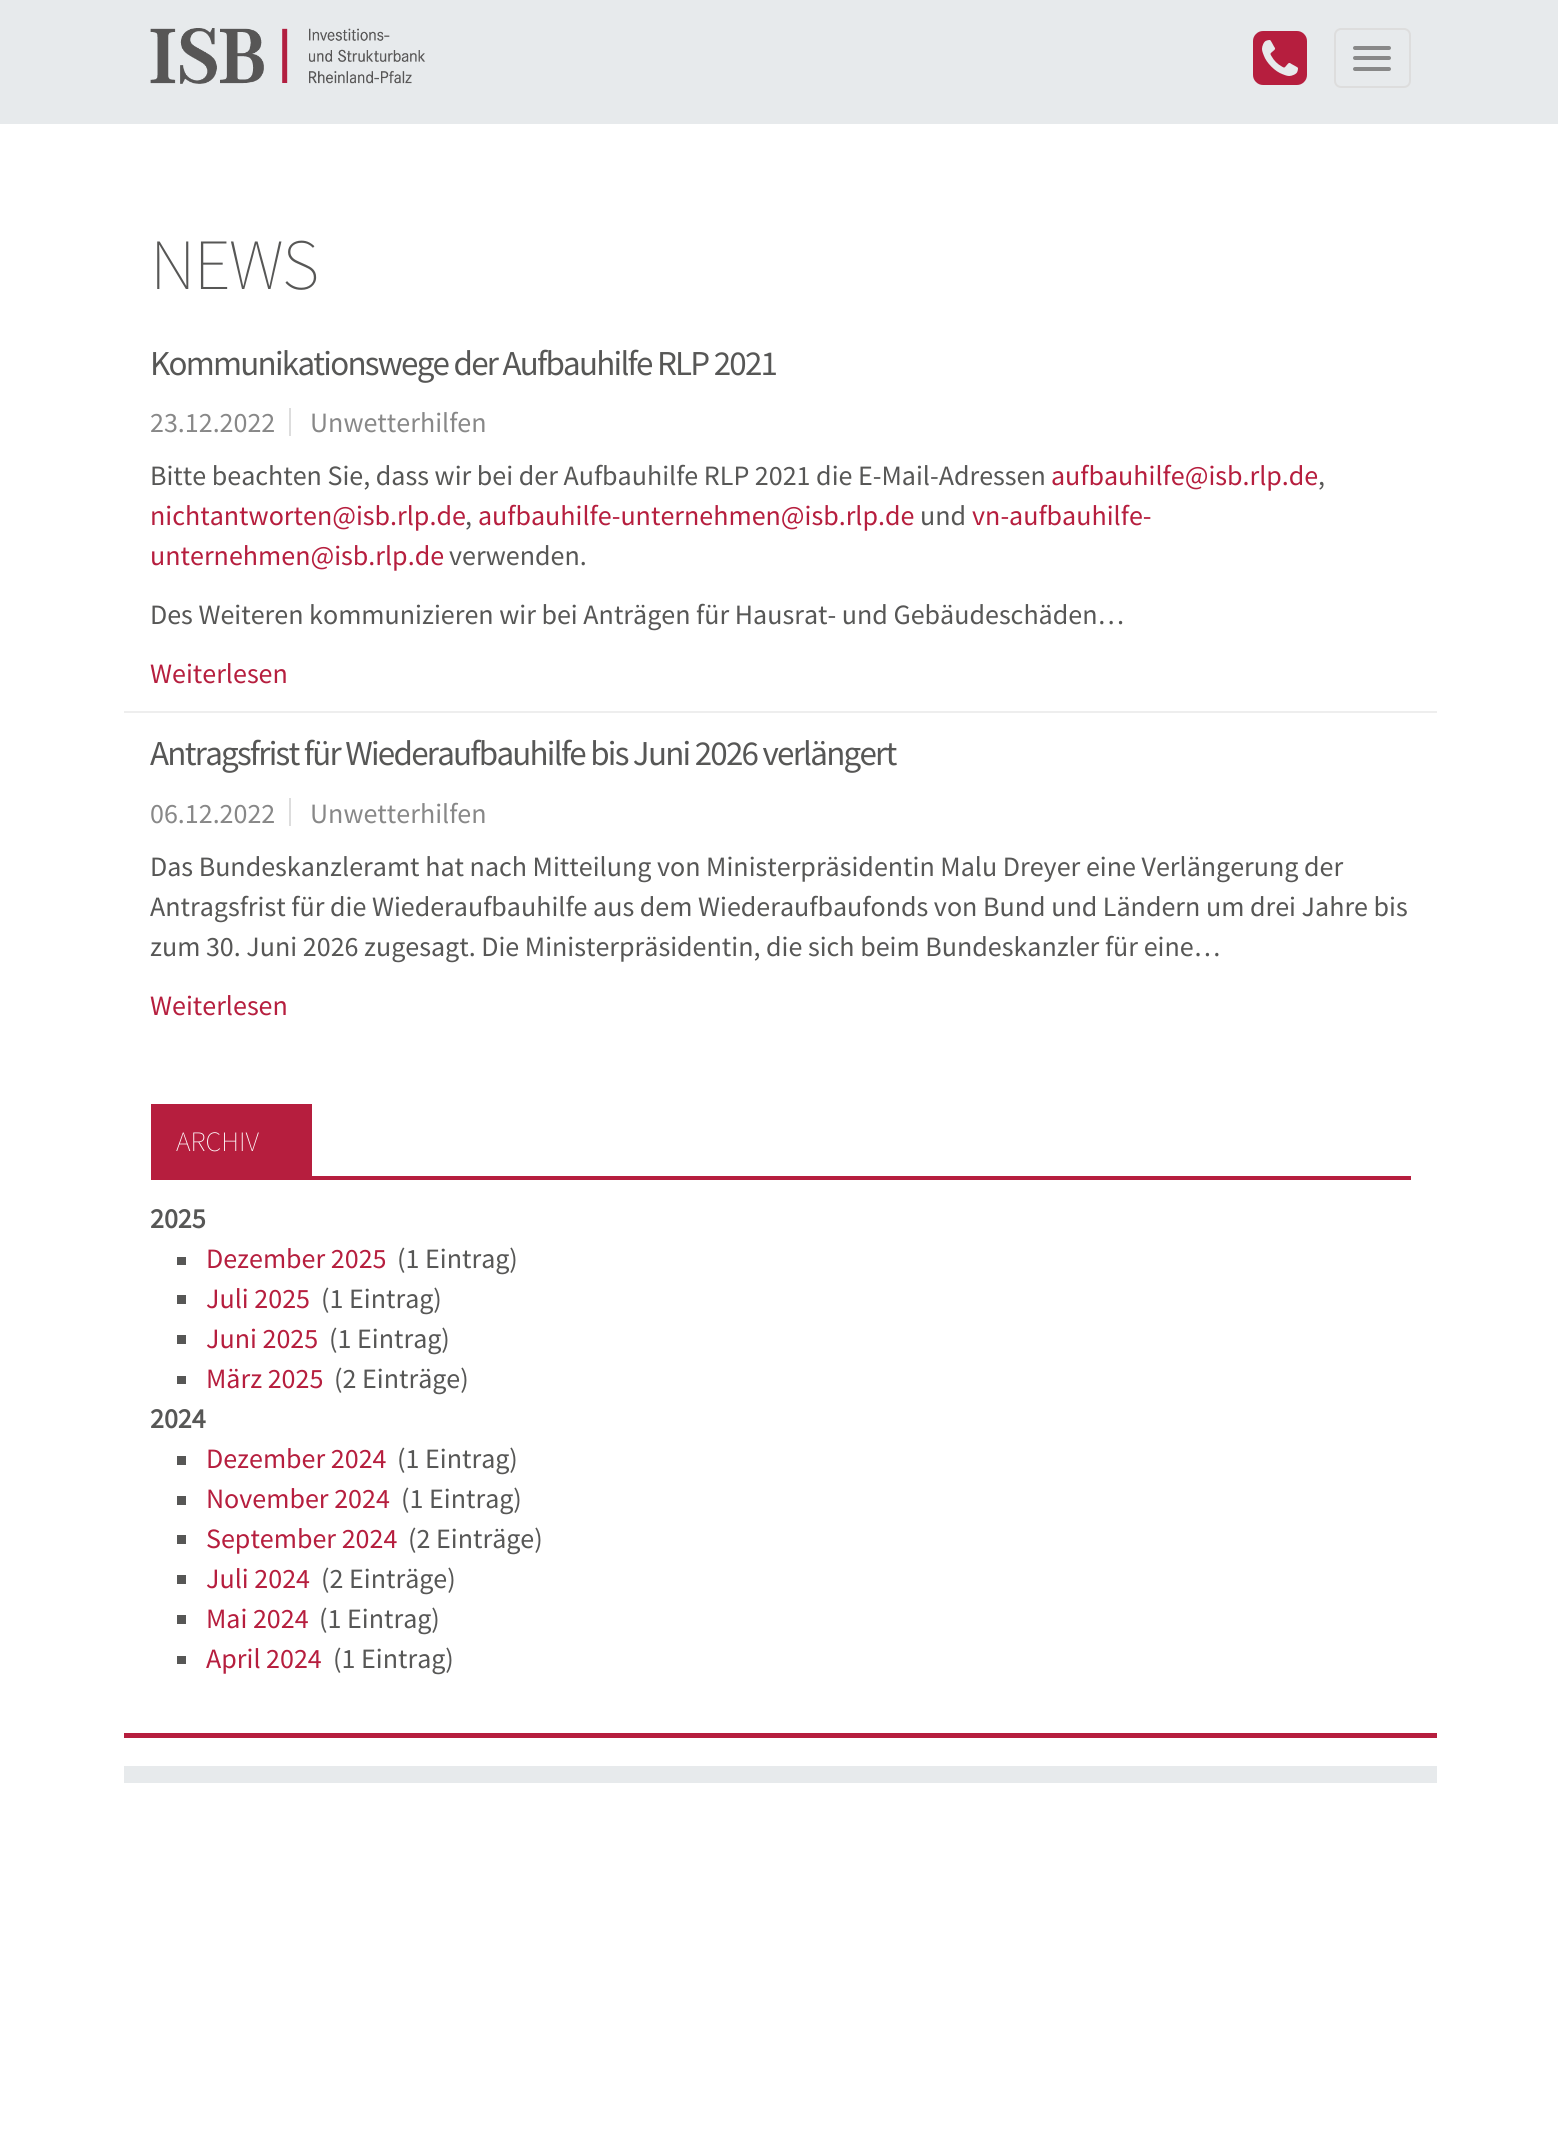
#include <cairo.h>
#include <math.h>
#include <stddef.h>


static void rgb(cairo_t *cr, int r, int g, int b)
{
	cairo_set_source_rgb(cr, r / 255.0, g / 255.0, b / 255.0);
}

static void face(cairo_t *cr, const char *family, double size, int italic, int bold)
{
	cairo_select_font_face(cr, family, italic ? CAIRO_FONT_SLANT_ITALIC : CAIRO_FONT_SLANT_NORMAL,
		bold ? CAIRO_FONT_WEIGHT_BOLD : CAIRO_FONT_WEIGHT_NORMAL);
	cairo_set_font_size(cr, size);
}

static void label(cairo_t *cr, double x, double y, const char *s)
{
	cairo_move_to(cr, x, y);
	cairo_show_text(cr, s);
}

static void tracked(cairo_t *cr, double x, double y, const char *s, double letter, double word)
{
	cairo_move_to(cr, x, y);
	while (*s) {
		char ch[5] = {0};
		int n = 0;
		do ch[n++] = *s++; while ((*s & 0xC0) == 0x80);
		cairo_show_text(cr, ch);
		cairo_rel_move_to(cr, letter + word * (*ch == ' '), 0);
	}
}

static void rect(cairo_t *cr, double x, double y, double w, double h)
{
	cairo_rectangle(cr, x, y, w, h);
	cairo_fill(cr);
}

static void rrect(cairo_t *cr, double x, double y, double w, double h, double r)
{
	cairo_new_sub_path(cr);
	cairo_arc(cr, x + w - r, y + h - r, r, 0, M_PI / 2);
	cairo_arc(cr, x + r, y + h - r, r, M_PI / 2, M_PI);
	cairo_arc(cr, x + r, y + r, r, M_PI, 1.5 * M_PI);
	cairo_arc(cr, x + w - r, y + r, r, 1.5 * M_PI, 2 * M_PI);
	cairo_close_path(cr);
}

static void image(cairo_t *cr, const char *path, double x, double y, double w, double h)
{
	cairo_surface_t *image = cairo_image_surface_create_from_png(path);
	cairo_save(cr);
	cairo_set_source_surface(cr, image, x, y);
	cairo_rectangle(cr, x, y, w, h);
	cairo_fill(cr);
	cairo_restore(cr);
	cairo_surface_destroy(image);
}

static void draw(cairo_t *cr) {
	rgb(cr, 255, 255, 255);
	cairo_paint(cr);
	rgb(cr, 231, 234, 236);
	rect(cr, 0, 0, 1558, 124);
	image(cr, "image0.png", 150, 28, 276, 56);
	image(cr, "image1.png", 1253, 31, 54, 54);
	rrect(cr, 1335, 29, 75, 58, 6);
	rgb(cr, 221, 221, 221);
	cairo_stroke(cr);
	rgb(cr, 136, 136, 136);
	rrect(cr, 1353, 46, 38, 4, 2);
	cairo_fill(cr);
	rrect(cr, 1353, 56, 38, 4, 2);
	cairo_fill(cr);
	rrect(cr, 1353, 67, 38, 4, 2);
	cairo_fill(cr);
	face(cr, "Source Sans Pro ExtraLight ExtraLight", 72, 0, 0);
	rgb(cr, 87, 87, 86);
	tracked(cr, 150, 289, "NEWS", -1.75, 0);
	rgb(cr, 238, 238, 238);
	rect(cr, 124, 711, 1313, 2);
	face(cr, "Source Sans Pro", 35, 0, 0);
	rgb(cr, 87, 87, 86);
	tracked(cr, 150, 375, "Kommunikationswege der Aufbauhilfe RLP 2021", -1.75, 0);
	rgb(cr, 221, 221, 221);
	rect(cr, 289, 408, 2, 28);
	face(cr, "Source Sans Pro", 28, 0, 0);
	rgb(cr, 136, 136, 136);
	label(cr, 150, 432, "23.12.2022");
	label(cr, 310, 432, "Unwetterhilfen");
	rgb(cr, 87, 87, 86);
	label(cr, 150, 485, "Bitte beachten Sie, dass wir bei der Aufbauhilfe RLP 2021 die E-Mail-Adressen");
	rgb(cr, 182, 30, 62);
	label(cr, 1051, 485, "aufbauhilfe@isb.rlp.de");
	rgb(cr, 87, 87, 86);
	label(cr, 1318, 485, ",");
	rgb(cr, 182, 30, 62);
	label(cr, 150, 525, "nichtantworten@isb.rlp.de");
	rgb(cr, 87, 87, 86);
	label(cr, 465, 525, ",");
	rgb(cr, 182, 30, 62);
	label(cr, 478, 525, "aufbauhilfe-unternehmen@isb.rlp.de");
	rgb(cr, 87, 87, 86);
	label(cr, 920, 525, "und");
	rgb(cr, 182, 30, 62);
	label(cr, 972, 525, "vn-aufbauhilfe-");
	label(cr, 150, 565, "unternehmen@isb.rlp.de");
	rgb(cr, 87, 87, 86);
	label(cr, 449, 565, "verwenden.");
	label(cr, 150, 624, "Des Weiteren kommunizieren wir bei Anträgen für Hausrat- und Gebäudeschäden…");
	rgb(cr, 182, 30, 62);
	label(cr, 150, 683, "Weiterlesen");
	face(cr, "Source Sans Pro", 35, 0, 0);
	rgb(cr, 87, 87, 86);
	tracked(cr, 150, 765, "Antragsfrist für Wiederaufbauhilfe bis Juni 2026 verlängert", -1.75, 0);
	rgb(cr, 221, 221, 221);
	rect(cr, 289, 798, 2, 28);
	face(cr, "Source Sans Pro", 28, 0, 0);
	rgb(cr, 136, 136, 136);
	label(cr, 150, 823, "06.12.2022");
	label(cr, 310, 823, "Unwetterhilfen");
	rgb(cr, 87, 87, 86);
	label(cr, 150, 876, "Das Bundeskanzleramt hat nach Mitteilung von Ministerpräsidentin Malu Dreyer eine Verlängerung der");
	label(cr, 150, 916, "Antragsfrist für die Wiederaufbauhilfe aus dem Wiederaufbaufonds von Bund und Ländern um drei Jahre bis");
	label(cr, 150, 956, "zum 30. Juni 2026 zugesagt. Die Ministerpräsidentin, die sich beim Bundeskanzler für eine…");
	rgb(cr, 182, 30, 62);
	label(cr, 150, 1015, "Weiterlesen");
	rect(cr, 151, 1104, 161, 72);
	face(cr, "Source Sans Pro ExtraLight ExtraLight", 28, 0, 0);
	rgb(cr, 255, 255, 255);
	label(cr, 176, 1151, "ARCHIV");
	rgb(cr, 182, 30, 62);
	rect(cr, 151, 1176, 1260, 4);
	face(cr, "Source Sans Pro", 28, 0, 1);
	rgb(cr, 87, 87, 86);
	label(cr, 150, 1228, "2025");
	rect(cr, 177, 1257, 9, 8);
	face(cr, "Source Sans Pro", 28, 0, 0);
	rgb(cr, 182, 30, 62);
	label(cr, 206, 1268, "Dezember 2025");
	rgb(cr, 87, 87, 86);
	label(cr, 397, 1268, "(1 Eintrag)");
	rect(cr, 177, 1295, 9, 9);
	rgb(cr, 182, 30, 62);
	label(cr, 206, 1308, "Juli 2025");
	rgb(cr, 87, 87, 86);
	label(cr, 321, 1308, "(1 Eintrag)");
	rect(cr, 177, 1335, 9, 9);
	rgb(cr, 182, 30, 62);
	label(cr, 206, 1348, "Juni 2025");
	rgb(cr, 87, 87, 86);
	label(cr, 329, 1348, "(1 Eintrag)");
	rect(cr, 177, 1376, 9, 8);
	rgb(cr, 182, 30, 62);
	label(cr, 206, 1388, "März 2025");
	rgb(cr, 87, 87, 86);
	label(cr, 334, 1388, "(2 Einträge)");
	face(cr, "Source Sans Pro", 28, 0, 1);
	label(cr, 150, 1428, "2024");
	rect(cr, 177, 1456, 9, 9);
	face(cr, "Source Sans Pro", 28, 0, 0);
	rgb(cr, 182, 30, 62);
	label(cr, 206, 1468, "Dezember 2024");
	rgb(cr, 87, 87, 86);
	label(cr, 397, 1468, "(1 Eintrag)");
	rect(cr, 177, 1496, 9, 9);
	rgb(cr, 182, 30, 62);
	label(cr, 206, 1508, "November 2024");
	rgb(cr, 87, 87, 86);
	label(cr, 401, 1508, "(1 Eintrag)");
	rect(cr, 177, 1535, 9, 9);
	rgb(cr, 182, 30, 62);
	label(cr, 206, 1548, "September 2024");
	rgb(cr, 87, 87, 86);
	label(cr, 408, 1548, "(2 Einträge)");
	rect(cr, 177, 1575, 9, 9);
	rgb(cr, 182, 30, 62);
	label(cr, 206, 1588, "Juli 2024");
	rgb(cr, 87, 87, 86);
	label(cr, 321, 1588, "(2 Einträge)");
	rect(cr, 177, 1615, 9, 9);
	rgb(cr, 182, 30, 62);
	label(cr, 206, 1628, "Mai 2024");
	rgb(cr, 87, 87, 86);
	label(cr, 319, 1628, "(1 Eintrag)");
	rect(cr, 177, 1656, 9, 8);
	rgb(cr, 182, 30, 62);
	label(cr, 206, 1668, "April 2024");
	rgb(cr, 87, 87, 86);
	label(cr, 333, 1668, "(1 Eintrag)");
	rgb(cr, 182, 30, 62);
	rect(cr, 124, 1733, 1313, 5);
	rgb(cr, 231, 234, 236);
	rect(cr, 124, 1766, 1313, 17);
}

int main(void) {
	cairo_surface_t *surface = cairo_image_surface_create(CAIRO_FORMAT_RGB24, 1558, 2156);
	cairo_t *cr = cairo_create(surface);
	cairo_font_options_t *options = cairo_font_options_create();
	cairo_font_options_set_hint_metrics(options, CAIRO_HINT_METRICS_OFF);
	cairo_font_options_set_hint_style(options, CAIRO_HINT_STYLE_NONE);
	cairo_set_font_options(cr, options);
	cairo_set_miter_limit(cr, 4);
	draw(cr);
	cairo_surface_write_to_png(surface, "render.png");
	cairo_font_options_destroy(options);
	cairo_destroy(cr);
	cairo_surface_destroy(surface);
	return 0;
}
